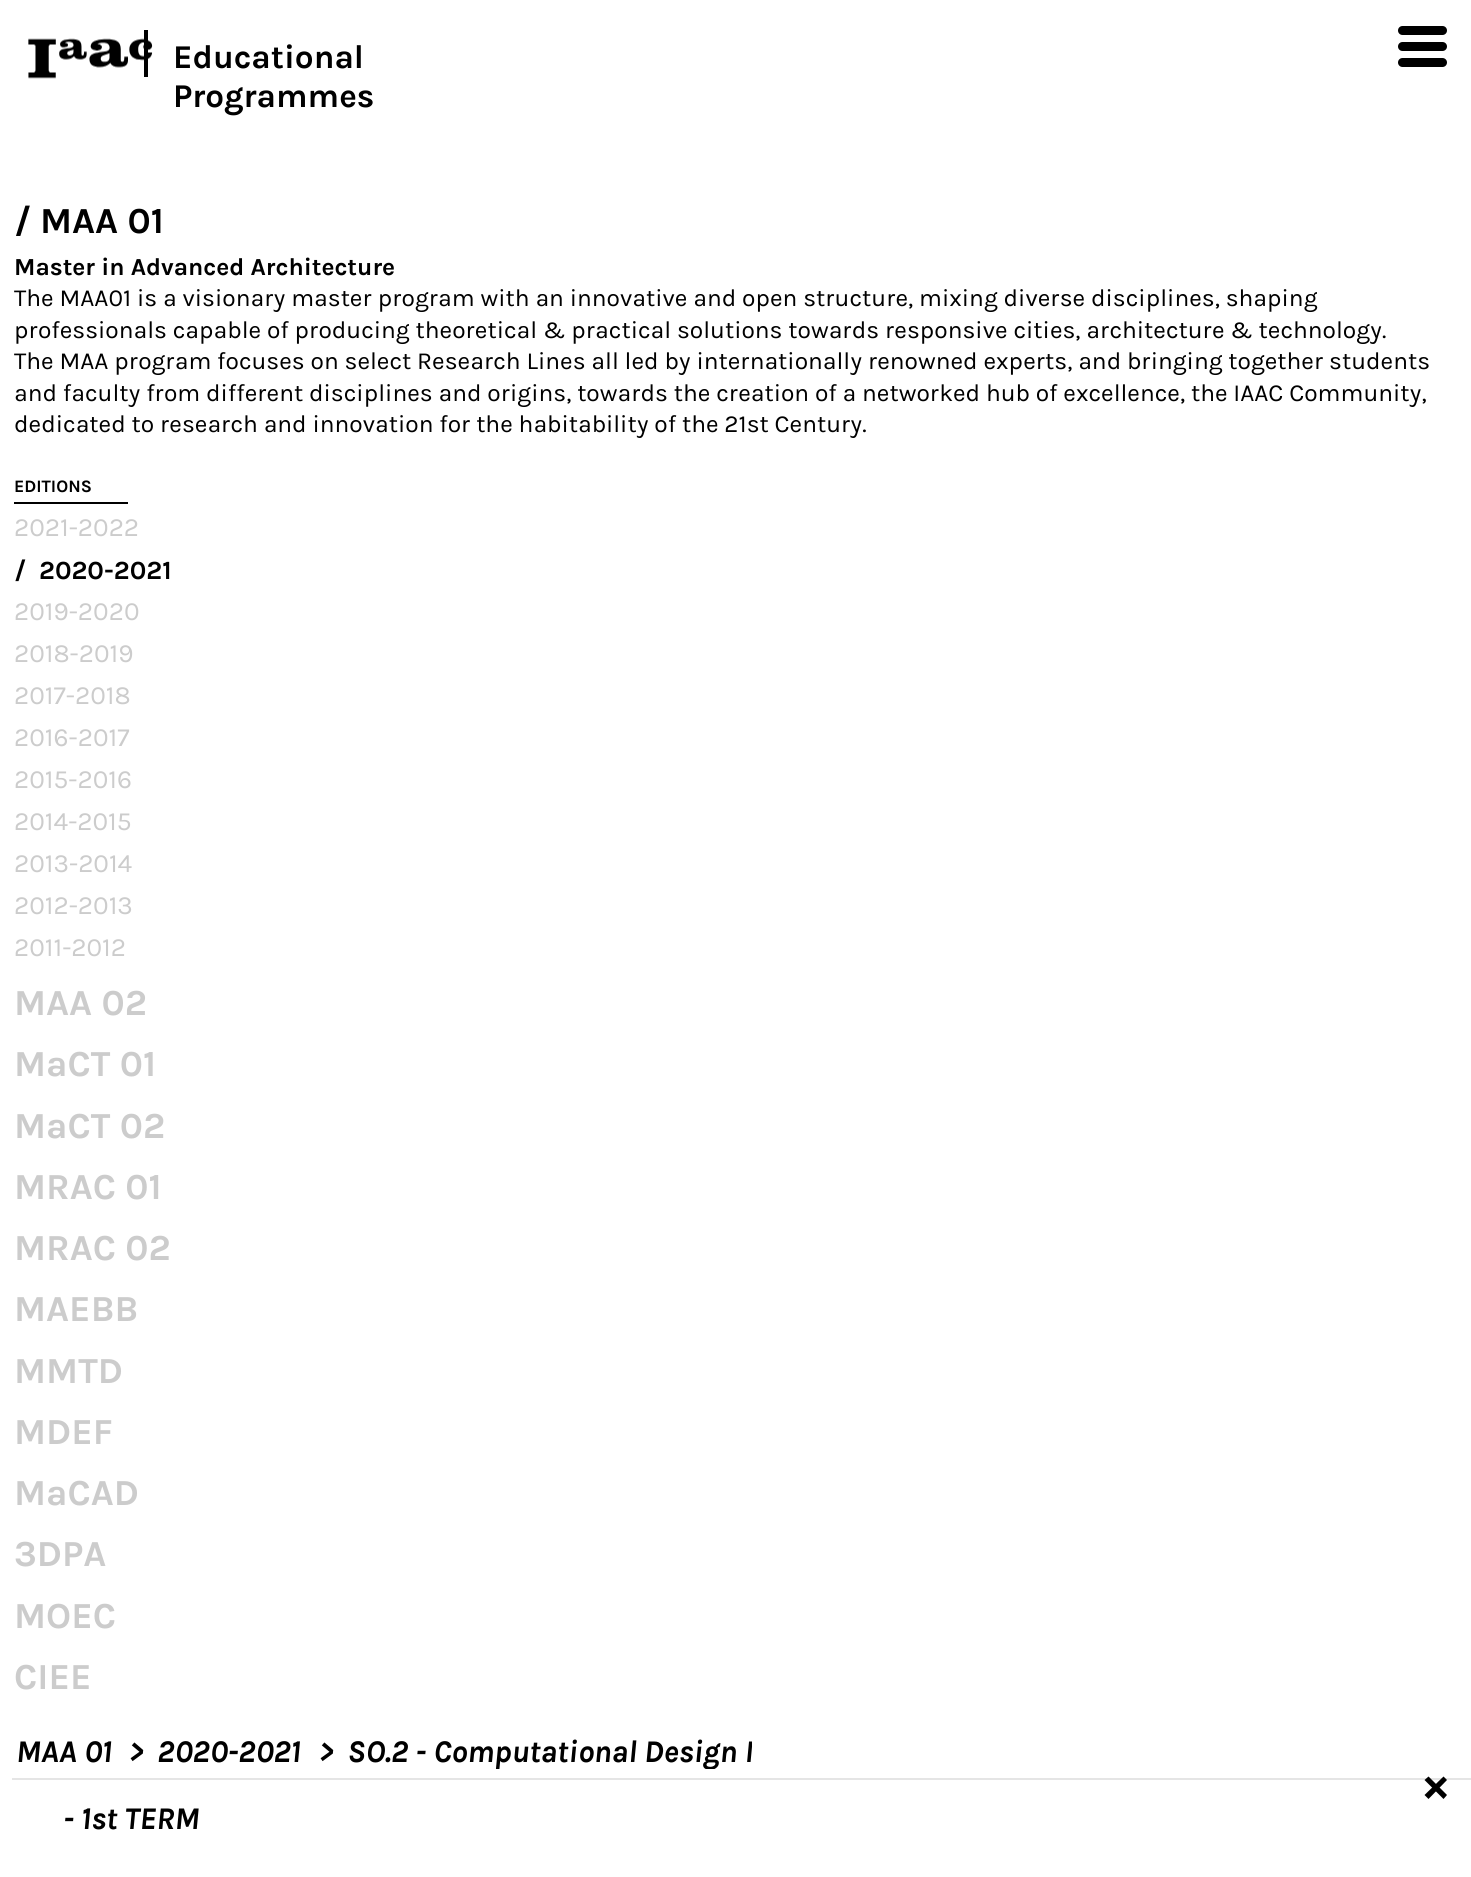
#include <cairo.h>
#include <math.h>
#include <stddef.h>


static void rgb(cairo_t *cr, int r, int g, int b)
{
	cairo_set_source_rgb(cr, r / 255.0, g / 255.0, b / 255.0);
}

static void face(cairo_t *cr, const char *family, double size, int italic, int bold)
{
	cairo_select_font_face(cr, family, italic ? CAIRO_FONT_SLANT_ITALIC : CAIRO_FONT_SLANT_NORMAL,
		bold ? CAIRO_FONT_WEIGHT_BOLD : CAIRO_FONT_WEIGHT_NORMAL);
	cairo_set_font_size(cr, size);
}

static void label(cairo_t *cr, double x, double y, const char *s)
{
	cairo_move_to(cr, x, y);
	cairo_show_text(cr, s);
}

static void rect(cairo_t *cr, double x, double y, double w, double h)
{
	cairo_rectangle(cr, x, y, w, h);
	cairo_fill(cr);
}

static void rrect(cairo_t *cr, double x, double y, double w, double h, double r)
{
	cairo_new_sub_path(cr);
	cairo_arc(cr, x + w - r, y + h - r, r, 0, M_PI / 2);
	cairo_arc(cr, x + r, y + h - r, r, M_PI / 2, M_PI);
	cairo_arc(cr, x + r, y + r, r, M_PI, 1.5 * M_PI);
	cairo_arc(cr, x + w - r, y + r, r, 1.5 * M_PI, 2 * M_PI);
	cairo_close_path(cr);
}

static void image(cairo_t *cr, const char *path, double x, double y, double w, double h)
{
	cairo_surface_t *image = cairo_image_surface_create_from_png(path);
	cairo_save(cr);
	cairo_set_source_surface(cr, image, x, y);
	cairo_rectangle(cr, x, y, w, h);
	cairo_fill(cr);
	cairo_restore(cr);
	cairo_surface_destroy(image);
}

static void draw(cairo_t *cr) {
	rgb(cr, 255, 255, 255);
	cairo_paint(cr);
	image(cr, "image0.png", 28, 38, 125, 41);
	rgb(cr, 0, 0, 0);
	rect(cr, 144, 30, 4, 47);
	face(cr, "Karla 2", 33.25, 0, 1);
	label(cr, 173, 68, "Educational");
	label(cr, 173, 107, "Programmes");
	rrect(cr, 1398, 26, 49, 9, 4.5);
	cairo_fill(cr);
	rrect(cr, 1398, 42, 49, 9, 4.5);
	cairo_fill(cr);
	rrect(cr, 1398, 58, 49, 9, 4.5);
	cairo_fill(cr);
	face(cr, "Karla", 36.75, 0, 1);
	label(cr, 14, 233, "/");
	label(cr, 40, 233, "MAA 01");
	face(cr, "Karla 2", 24.5, 0, 1);
	label(cr, 14, 275, "Master in Advanced Architecture");
	face(cr, "Karla", 24.5, 0, 0);
	label(cr, 14, 306, "The MAA01 is a visionary master program with an innovative and open structure, mixing diverse disciplines, shaping");
	label(cr, 14, 338, "professionals capable of producing theoretical & practical solutions towards responsive cities, architecture & technology.");
	label(cr, 14, 369, "The MAA program focuses on select Research Lines all led by internationally renowned experts, and bringing together students");
	label(cr, 14, 401, "and faculty from different disciplines and origins, towards the creation of a networked hub of excellence, the IAAC Community,");
	label(cr, 14, 432, "dedicated to research and innovation for the habitability of the 21st Century.");
	face(cr, "Karla", 17.5, 0, 1);
	label(cr, 14, 492, "EDITIONS");
	rect(cr, 14, 502, 114, 2);
	face(cr, "Karla", 26.25, 0, 0);
	rgb(cr, 204, 204, 204);
	label(cr, 14, 536, "2021-2022");
	face(cr, "Karla", 26.25, 0, 1);
	rgb(cr, 0, 0, 0);
	label(cr, 14, 579, "/");
	label(cr, 39, 579, "2020-2021");
	face(cr, "Karla", 26.25, 0, 0);
	rgb(cr, 204, 204, 204);
	label(cr, 14, 620, "2019-2020");
	label(cr, 14, 662, "2018-2019");
	label(cr, 14, 704, "2017-2018");
	label(cr, 14, 746, "2016-2017");
	label(cr, 14, 788, "2015-2016");
	label(cr, 14, 830, "2014-2015");
	label(cr, 14, 872, "2013-2014");
	label(cr, 14, 914, "2012-2013");
	label(cr, 14, 956, "2011-2012");
	face(cr, "Karla", 36.75, 0, 1);
	label(cr, 14, 1015, "MAA 02");
	label(cr, 14, 1076, "MaCT 01");
	label(cr, 14, 1138, "MaCT 02");
	label(cr, 14, 1199, "MRAC 01");
	label(cr, 14, 1260, "MRAC 02");
	label(cr, 14, 1321, "MAEBB");
	label(cr, 14, 1383, "MMTD");
	label(cr, 14, 1444, "MDEF");
	label(cr, 14, 1505, "MaCAD");
	label(cr, 14, 1566, "3DPA");
	label(cr, 14, 1628, "MOEC");
	label(cr, 14, 1689, "CIEE");
	rgb(cr, 229, 229, 229);
	rect(cr, 12, 1778, 1459, 2);
	face(cr, "Karla", 31.5, 1, 1);
	rgb(cr, 0, 0, 0);
	label(cr, 16, 1762, "MAA 01");
	label(cr, 129, 1762, ">");
	label(cr, 157, 1762, "2020-2021");
	label(cr, 319, 1762, ">");
	cairo_save(cr);
	cairo_rectangle(cr, 16, 1734, 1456, 35);
	cairo_clip(cr);
	label(cr, 347, 1762, "SO.2 - Computational Design I");
	cairo_restore(cr);
	cairo_new_path(cr);
	cairo_move_to(cr, 1428.5, 1776.5);
	cairo_line_to(cr, 1447, 1795);
	cairo_line_to(cr, 1443.5, 1799);
	cairo_line_to(cr, 1424.5, 1780);
	cairo_close_path(cr);
	cairo_fill(cr);
	cairo_new_path(cr);
	cairo_move_to(cr, 1424.5, 1795);
	cairo_line_to(cr, 1443.5, 1776.5);
	cairo_line_to(cr, 1447, 1780);
	cairo_line_to(cr, 1428.5, 1799);
	cairo_close_path(cr);
	cairo_fill(cr);
	label(cr, 63, 1829, "- 1st TERM");
}

int main(void) {
	cairo_surface_t *surface = cairo_image_surface_create(CAIRO_FORMAT_RGB24, 1471, 1877);
	cairo_t *cr = cairo_create(surface);
	cairo_font_options_t *options = cairo_font_options_create();
	cairo_font_options_set_hint_metrics(options, CAIRO_HINT_METRICS_OFF);
	cairo_font_options_set_hint_style(options, CAIRO_HINT_STYLE_NONE);
	cairo_set_font_options(cr, options);
	cairo_set_miter_limit(cr, 4);
	draw(cr);
	cairo_surface_write_to_png(surface, "render.png");
	cairo_font_options_destroy(options);
	cairo_destroy(cr);
	cairo_surface_destroy(surface);
	return 0;
}
